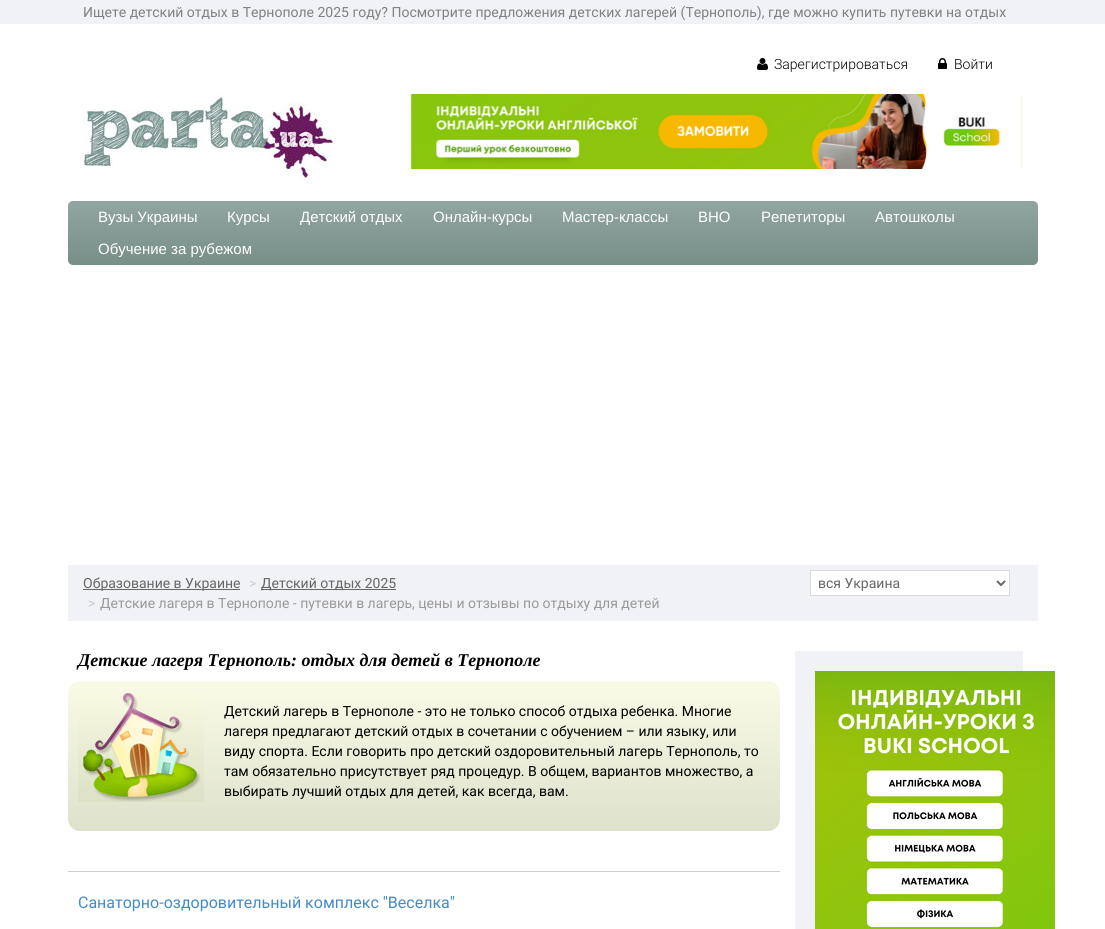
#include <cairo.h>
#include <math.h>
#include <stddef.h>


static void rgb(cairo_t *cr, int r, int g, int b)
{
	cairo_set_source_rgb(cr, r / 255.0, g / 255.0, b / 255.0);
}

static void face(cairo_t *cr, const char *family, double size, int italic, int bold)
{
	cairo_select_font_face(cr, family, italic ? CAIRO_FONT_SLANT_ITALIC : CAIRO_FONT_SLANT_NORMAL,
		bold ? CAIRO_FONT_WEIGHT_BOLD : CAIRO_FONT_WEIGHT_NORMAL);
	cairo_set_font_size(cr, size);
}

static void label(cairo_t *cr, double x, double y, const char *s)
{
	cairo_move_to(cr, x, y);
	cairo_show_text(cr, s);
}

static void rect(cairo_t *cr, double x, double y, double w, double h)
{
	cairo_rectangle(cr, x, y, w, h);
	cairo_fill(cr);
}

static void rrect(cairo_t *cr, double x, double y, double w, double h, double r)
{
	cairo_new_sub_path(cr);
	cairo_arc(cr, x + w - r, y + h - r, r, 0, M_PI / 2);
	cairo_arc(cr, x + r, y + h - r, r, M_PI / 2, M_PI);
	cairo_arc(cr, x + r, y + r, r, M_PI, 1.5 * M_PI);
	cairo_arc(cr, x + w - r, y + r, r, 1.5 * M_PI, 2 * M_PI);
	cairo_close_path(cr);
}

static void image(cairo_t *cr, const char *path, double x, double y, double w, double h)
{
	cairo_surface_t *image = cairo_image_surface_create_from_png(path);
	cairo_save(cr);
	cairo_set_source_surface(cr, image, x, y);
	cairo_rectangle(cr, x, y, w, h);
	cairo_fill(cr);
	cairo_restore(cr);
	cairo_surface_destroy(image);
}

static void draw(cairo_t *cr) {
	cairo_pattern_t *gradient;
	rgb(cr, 255, 255, 255);
	cairo_paint(cr);
	rgb(cr, 241, 242, 246);
	rect(cr, 0, 0, 1105, 24);
	face(cr, "Roboto", 14, 0, 0);
	rgb(cr, 129, 129, 129);
	label(cr, 83, 17, "Ищете детский отдых в Тернополе 2025 году? Посмотрите предложения детских лагерей (Тернополь), где можно купить путевки на отдых");
	image(cr, "image0.png", 757, 58, 11, 12);
	face(cr, "Roboto Light", 14, 0, 0);
	rgb(cr, 0, 0, 0);
	label(cr, 774, 69, "Зарегистрироваться");
	image(cr, "image1.png", 938, 58, 9, 11);
	label(cr, 954, 69, "Войти");
	image(cr, "image2.png", 83, 94, 250, 87);
	image(cr, "image3.png", 410, 94, 613, 75);
	gradient = cairo_pattern_create_linear(553, 201, 553, 265);
	cairo_pattern_add_color_stop_rgba(gradient, 0, 0.569, 0.647, 0.635, 1);
	cairo_pattern_add_color_stop_rgba(gradient, 1, 0.471, 0.561, 0.533, 1);
	cairo_pattern_add_color_stop_rgba(gradient, 1, 0, 0.831, 1, 1);
	cairo_set_source(cr, gradient);
	cairo_pattern_destroy(gradient);
	rrect(cr, 68, 201, 970, 64, 5);
	cairo_fill(cr);
	face(cr, "Liberation Sans", 15, 0, 0);
	rgb(cr, 255, 255, 255);
	label(cr, 98, 222, "Вузы Украины");
	label(cr, 227, 222, "Курсы");
	label(cr, 300, 222, "Детский отдых");
	label(cr, 433, 222, "Онлайн-курсы");
	label(cr, 562, 222, "Мастер-классы");
	label(cr, 698, 222, "ВНО");
	label(cr, 761, 222, "Репетиторы");
	label(cr, 875, 222, "Автошколы");
	label(cr, 98, 254, "Обучение за рубежом");
	rgb(cr, 241, 242, 246);
	rect(cr, 68, 565, 970, 56);
	rgb(cr, 102, 102, 102);
	rect(cr, 83, 589, 157, 1);
	face(cr, "Roboto", 14, 0, 0);
	label(cr, 83, 588, "Образование в Украине");
	rgb(cr, 204, 204, 204);
	label(cr, 249, 588, ">");
	rgb(cr, 102, 102, 102);
	rect(cr, 261, 589, 135, 1);
	label(cr, 261, 588, "Детский отдых 2025");
	rgb(cr, 204, 204, 204);
	label(cr, 88, 608, ">");
	rgb(cr, 153, 153, 153);
	label(cr, 100, 608, "Детские лагеря в Тернополе - путевки в лагерь, цены и отзывы по отдыху для детей");
	rgb(cr, 255, 255, 255);
	cairo_rectangle(cr, 810.5, 570.5, 199, 25);
	cairo_fill_preserve(cr);
	rgb(cr, 218, 218, 218);
	cairo_set_line_width(cr, 1);
	cairo_stroke(cr);
	cairo_new_path(cr);
	cairo_move_to(cr, 997, 581);
	cairo_line_to(cr, 1001, 585);
	cairo_line_to(cr, 1005, 581);
	rgb(cr, 105, 103, 99);
	cairo_set_line_width(cr, 2);
	cairo_stroke(cr);
	rgb(cr, 102, 102, 102);
	label(cr, 818, 588, "вся Украина");
	face(cr, "Liberation Serif", 18, 1, 1);
	rgb(cr, 0, 0, 0);
	label(cr, 78, 666, "Детские лагеря Тернополь: отдых для детей в Тернополе");
	gradient = cairo_pattern_create_linear(424, 681, 424, 831);
	cairo_pattern_add_color_stop_rgba(gradient, 0, 0.976, 0.984, 0.902, 1);
	cairo_pattern_add_color_stop_rgba(gradient, 1, 0.871, 0.882, 0.796, 1);
	cairo_pattern_add_color_stop_rgba(gradient, 1, 0, 0.831, 1, 1);
	cairo_set_source(cr, gradient);
	cairo_pattern_destroy(gradient);
	rrect(cr, 68, 681, 712, 150, 12);
	cairo_fill(cr);
	image(cr, "image4.png", 78, 693, 126, 109);
	face(cr, "Roboto", 14, 0, 0);
	rgb(cr, 0, 0, 0);
	label(cr, 224, 716, "Детский лагерь в Тернополе - это не только способ отдыха ребенка. Многие");
	label(cr, 224, 736, "лагеря предлагают детский отдых в сочетании с обучением – или языку, или");
	label(cr, 224, 756, "виду спорта. Если говорить про детский оздоровительный лагерь Тернополь, то");
	label(cr, 224, 776, "там обязательно присутствует ряд процедур. В общем, вариантов множество, а");
	label(cr, 224, 796, "выбирать лучший отдых для детей, как всегда, вам.");
	rgb(cr, 202, 207, 212);
	rect(cr, 68, 871, 712, 1);
	face(cr, "Roboto", 16, 0, 0);
	rgb(cr, 66, 139, 202);
	label(cr, 78, 908, "Cанаторно-оздоровительный комплекс \"Веселка\"");
	rgb(cr, 241, 242, 245);
	rect(cr, 795, 651, 228, 278);
	image(cr, "image5.png", 815, 671, 240, 258);
}

int main(void) {
	cairo_surface_t *surface = cairo_image_surface_create(CAIRO_FORMAT_RGB24, 1105, 929);
	cairo_t *cr = cairo_create(surface);
	cairo_font_options_t *options = cairo_font_options_create();
	cairo_font_options_set_hint_metrics(options, CAIRO_HINT_METRICS_OFF);
	cairo_font_options_set_hint_style(options, CAIRO_HINT_STYLE_NONE);
	cairo_set_font_options(cr, options);
	cairo_set_miter_limit(cr, 4);
	draw(cr);
	cairo_surface_write_to_png(surface, "render.png");
	cairo_font_options_destroy(options);
	cairo_destroy(cr);
	cairo_surface_destroy(surface);
	return 0;
}
